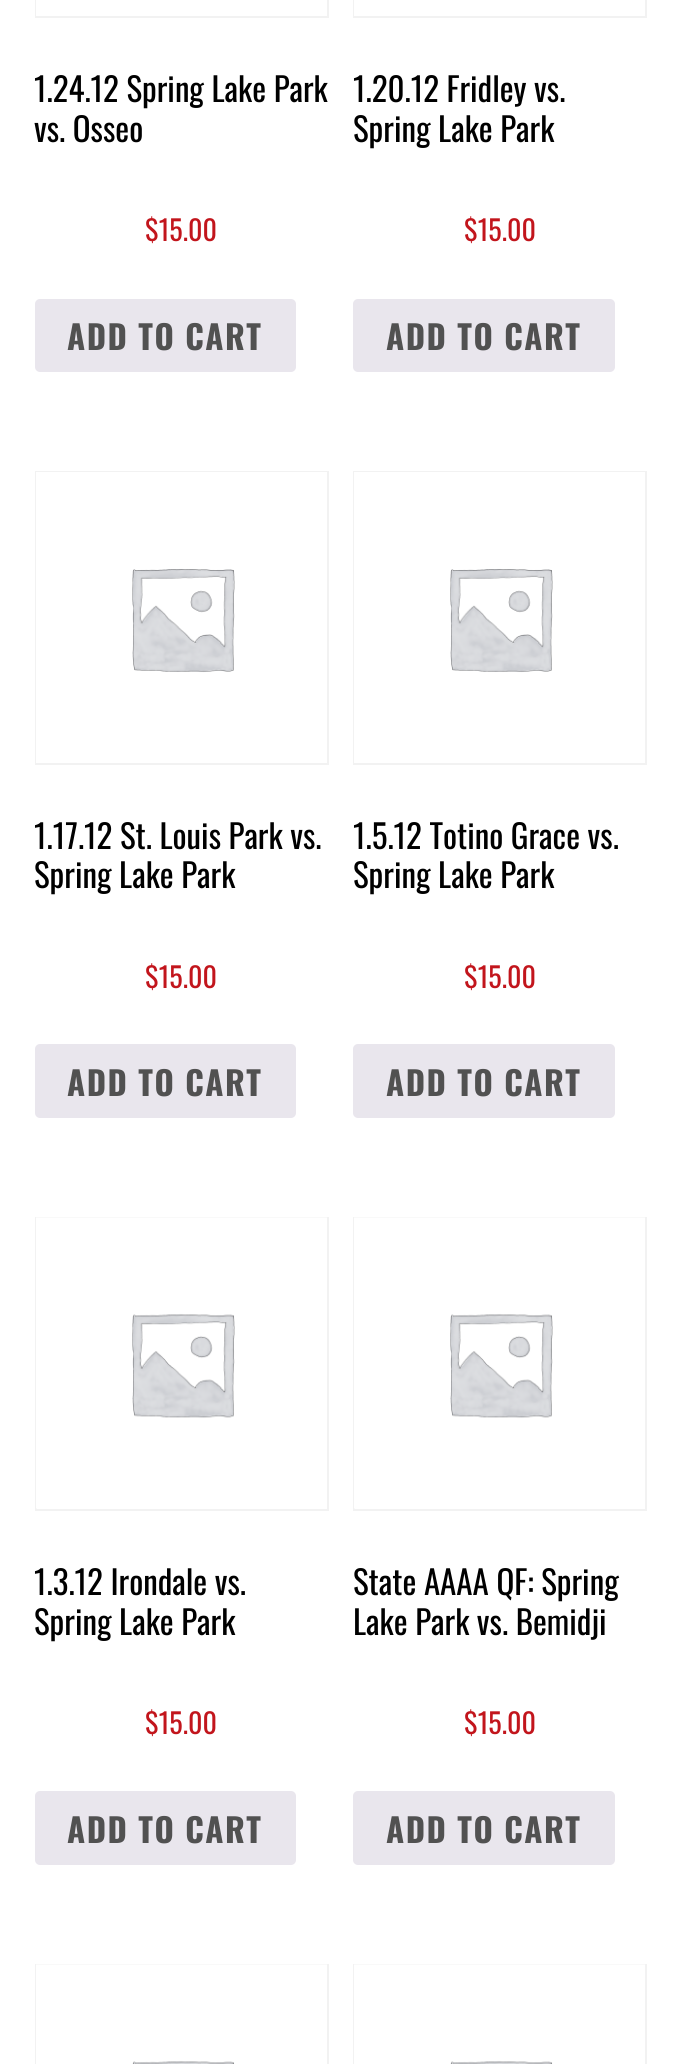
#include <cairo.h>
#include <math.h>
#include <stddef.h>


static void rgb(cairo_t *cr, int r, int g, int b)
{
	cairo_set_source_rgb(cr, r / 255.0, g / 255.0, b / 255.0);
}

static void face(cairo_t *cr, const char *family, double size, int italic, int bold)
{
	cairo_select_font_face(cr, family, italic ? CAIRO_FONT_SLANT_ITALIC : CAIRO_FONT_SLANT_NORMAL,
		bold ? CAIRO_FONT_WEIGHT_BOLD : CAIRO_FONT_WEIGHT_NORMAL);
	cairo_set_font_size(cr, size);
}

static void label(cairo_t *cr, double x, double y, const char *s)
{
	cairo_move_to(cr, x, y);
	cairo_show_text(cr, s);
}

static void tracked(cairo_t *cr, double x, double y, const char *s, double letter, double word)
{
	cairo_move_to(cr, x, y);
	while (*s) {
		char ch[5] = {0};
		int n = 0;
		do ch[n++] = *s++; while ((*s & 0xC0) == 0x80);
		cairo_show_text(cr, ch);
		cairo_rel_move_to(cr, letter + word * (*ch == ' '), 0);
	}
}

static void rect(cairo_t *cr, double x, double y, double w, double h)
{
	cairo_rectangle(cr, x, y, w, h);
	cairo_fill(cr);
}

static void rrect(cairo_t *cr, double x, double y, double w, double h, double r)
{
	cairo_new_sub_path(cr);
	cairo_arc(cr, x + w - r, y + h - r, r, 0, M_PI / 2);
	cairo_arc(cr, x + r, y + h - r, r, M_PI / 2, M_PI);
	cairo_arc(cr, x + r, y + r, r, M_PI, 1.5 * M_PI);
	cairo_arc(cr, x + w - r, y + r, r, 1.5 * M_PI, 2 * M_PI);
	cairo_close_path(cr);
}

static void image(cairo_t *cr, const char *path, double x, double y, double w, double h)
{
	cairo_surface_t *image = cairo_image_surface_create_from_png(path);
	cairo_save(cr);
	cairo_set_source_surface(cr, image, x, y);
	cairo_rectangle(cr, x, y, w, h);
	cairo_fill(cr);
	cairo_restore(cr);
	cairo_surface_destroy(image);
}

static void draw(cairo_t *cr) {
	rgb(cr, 255, 255, 255);
	cairo_paint(cr);
	cairo_rectangle(cr, 36, -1, 292, 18);
	rgb(cr, 242, 242, 242);
	cairo_stroke(cr);
	rgb(cr, 255, 255, 255);
	rect(cr, 36, 0, 1, 16);
	face(cr, "Oswald", 33, 0, 0);
	rgb(cr, 0, 0, 0);
	label(cr, 34, 102, "1.24.12 Spring Lake Park");
	label(cr, 34, 142, "vs. Osseo");
	face(cr, "Oswald", 28, 0, 0);
	rgb(cr, 194, 21, 28);
	label(cr, 145, 241, "$15.00");
	rgb(cr, 233, 230, 237);
	rrect(cr, 35, 299, 261, 73, 5);
	cairo_fill(cr);
	face(cr, "Oswald", 33, 0, 1);
	rgb(cr, 81, 81, 81);
	tracked(cr, 67, 350, "ADD TO CART", 1.5, 0);
	cairo_rectangle(cr, 354, -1, 292, 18);
	rgb(cr, 242, 242, 242);
	cairo_stroke(cr);
	rgb(cr, 255, 255, 255);
	rect(cr, 354, 0, 1, 16);
	face(cr, "Oswald", 33, 0, 0);
	rgb(cr, 0, 0, 0);
	label(cr, 353, 102, "1.20.12 Fridley vs.");
	label(cr, 353, 142, "Spring Lake Park");
	face(cr, "Oswald", 28, 0, 0);
	rgb(cr, 194, 21, 28);
	label(cr, 464, 241, "$15.00");
	rgb(cr, 233, 230, 237);
	rrect(cr, 353, 299, 262, 73, 5);
	cairo_fill(cr);
	face(cr, "Oswald", 33, 0, 1);
	rgb(cr, 81, 81, 81);
	tracked(cr, 386, 350, "ADD TO CART", 1.5, 0);
	cairo_rectangle(cr, 36, 472, 292, 292);
	rgb(cr, 242, 242, 242);
	cairo_stroke(cr);
	image(cr, "image0.png", 36, 472, 291, 291);
	face(cr, "Oswald", 33, 0, 0);
	rgb(cr, 0, 0, 0);
	label(cr, 34, 849, "1.17.12 St. Louis Park vs.");
	label(cr, 34, 888, "Spring Lake Park");
	face(cr, "Oswald", 28, 0, 0);
	rgb(cr, 194, 21, 28);
	label(cr, 145, 988, "$15.00");
	rgb(cr, 233, 230, 237);
	rrect(cr, 35, 1044, 261, 74, 5);
	cairo_fill(cr);
	face(cr, "Oswald", 33, 0, 1);
	rgb(cr, 81, 81, 81);
	tracked(cr, 67, 1096, "ADD TO CART", 1.5, 0);
	cairo_rectangle(cr, 354, 472, 292, 292);
	rgb(cr, 242, 242, 242);
	cairo_stroke(cr);
	image(cr, "image0.png", 354, 472, 291, 291);
	face(cr, "Oswald", 33, 0, 0);
	rgb(cr, 0, 0, 0);
	label(cr, 353, 849, "1.5.12 Totino Grace vs.");
	label(cr, 353, 888, "Spring Lake Park");
	face(cr, "Oswald", 28, 0, 0);
	rgb(cr, 194, 21, 28);
	label(cr, 464, 988, "$15.00");
	rgb(cr, 233, 230, 237);
	rrect(cr, 353, 1044, 262, 74, 5);
	cairo_fill(cr);
	face(cr, "Oswald", 33, 0, 1);
	rgb(cr, 81, 81, 81);
	tracked(cr, 386, 1096, "ADD TO CART", 1.5, 0);
	cairo_rectangle(cr, 36, 1218, 292, 292);
	rgb(cr, 242, 242, 242);
	cairo_stroke(cr);
	image(cr, "image1.png", 36, 1217, 291, 292);
	face(cr, "Oswald", 33, 0, 0);
	rgb(cr, 0, 0, 0);
	label(cr, 34, 1595, "1.3.12 Irondale vs.");
	label(cr, 34, 1635, "Spring Lake Park");
	face(cr, "Oswald", 28, 0, 0);
	rgb(cr, 194, 21, 28);
	label(cr, 145, 1734, "$15.00");
	rgb(cr, 233, 230, 237);
	rrect(cr, 35, 1791, 261, 74, 5);
	cairo_fill(cr);
	face(cr, "Oswald", 33, 0, 1);
	rgb(cr, 81, 81, 81);
	tracked(cr, 67, 1843, "ADD TO CART", 1.5, 0);
	cairo_rectangle(cr, 354, 1218, 292, 292);
	rgb(cr, 242, 242, 242);
	cairo_stroke(cr);
	image(cr, "image1.png", 354, 1217, 291, 292);
	face(cr, "Oswald", 33, 0, 0);
	rgb(cr, 0, 0, 0);
	label(cr, 353, 1595, "State AAAA QF: Spring");
	label(cr, 353, 1635, "Lake Park vs. Bemidji");
	face(cr, "Oswald", 28, 0, 0);
	rgb(cr, 194, 21, 28);
	label(cr, 464, 1734, "$15.00");
	rgb(cr, 233, 230, 237);
	rrect(cr, 353, 1791, 262, 74, 5);
	cairo_fill(cr);
	face(cr, "Oswald", 33, 0, 1);
	rgb(cr, 81, 81, 81);
	tracked(cr, 386, 1843, "ADD TO CART", 1.5, 0);
	cairo_rectangle(cr, 36, 1965, 292, 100);
	rgb(cr, 242, 242, 242);
	cairo_stroke(cr);
	image(cr, "image2.png", 36, 1964, 291, 100);
	cairo_rectangle(cr, 354, 1965, 292, 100);
	cairo_stroke(cr);
	image(cr, "image2.png", 354, 1964, 291, 100);
}

int main(void) {
	cairo_surface_t *surface = cairo_image_surface_create(CAIRO_FORMAT_RGB24, 681, 2064);
	cairo_t *cr = cairo_create(surface);
	cairo_font_options_t *options = cairo_font_options_create();
	cairo_font_options_set_hint_metrics(options, CAIRO_HINT_METRICS_OFF);
	cairo_font_options_set_hint_style(options, CAIRO_HINT_STYLE_NONE);
	cairo_set_font_options(cr, options);
	cairo_set_miter_limit(cr, 4);
	draw(cr);
	cairo_surface_write_to_png(surface, "render.png");
	cairo_font_options_destroy(options);
	cairo_destroy(cr);
	cairo_surface_destroy(surface);
	return 0;
}
